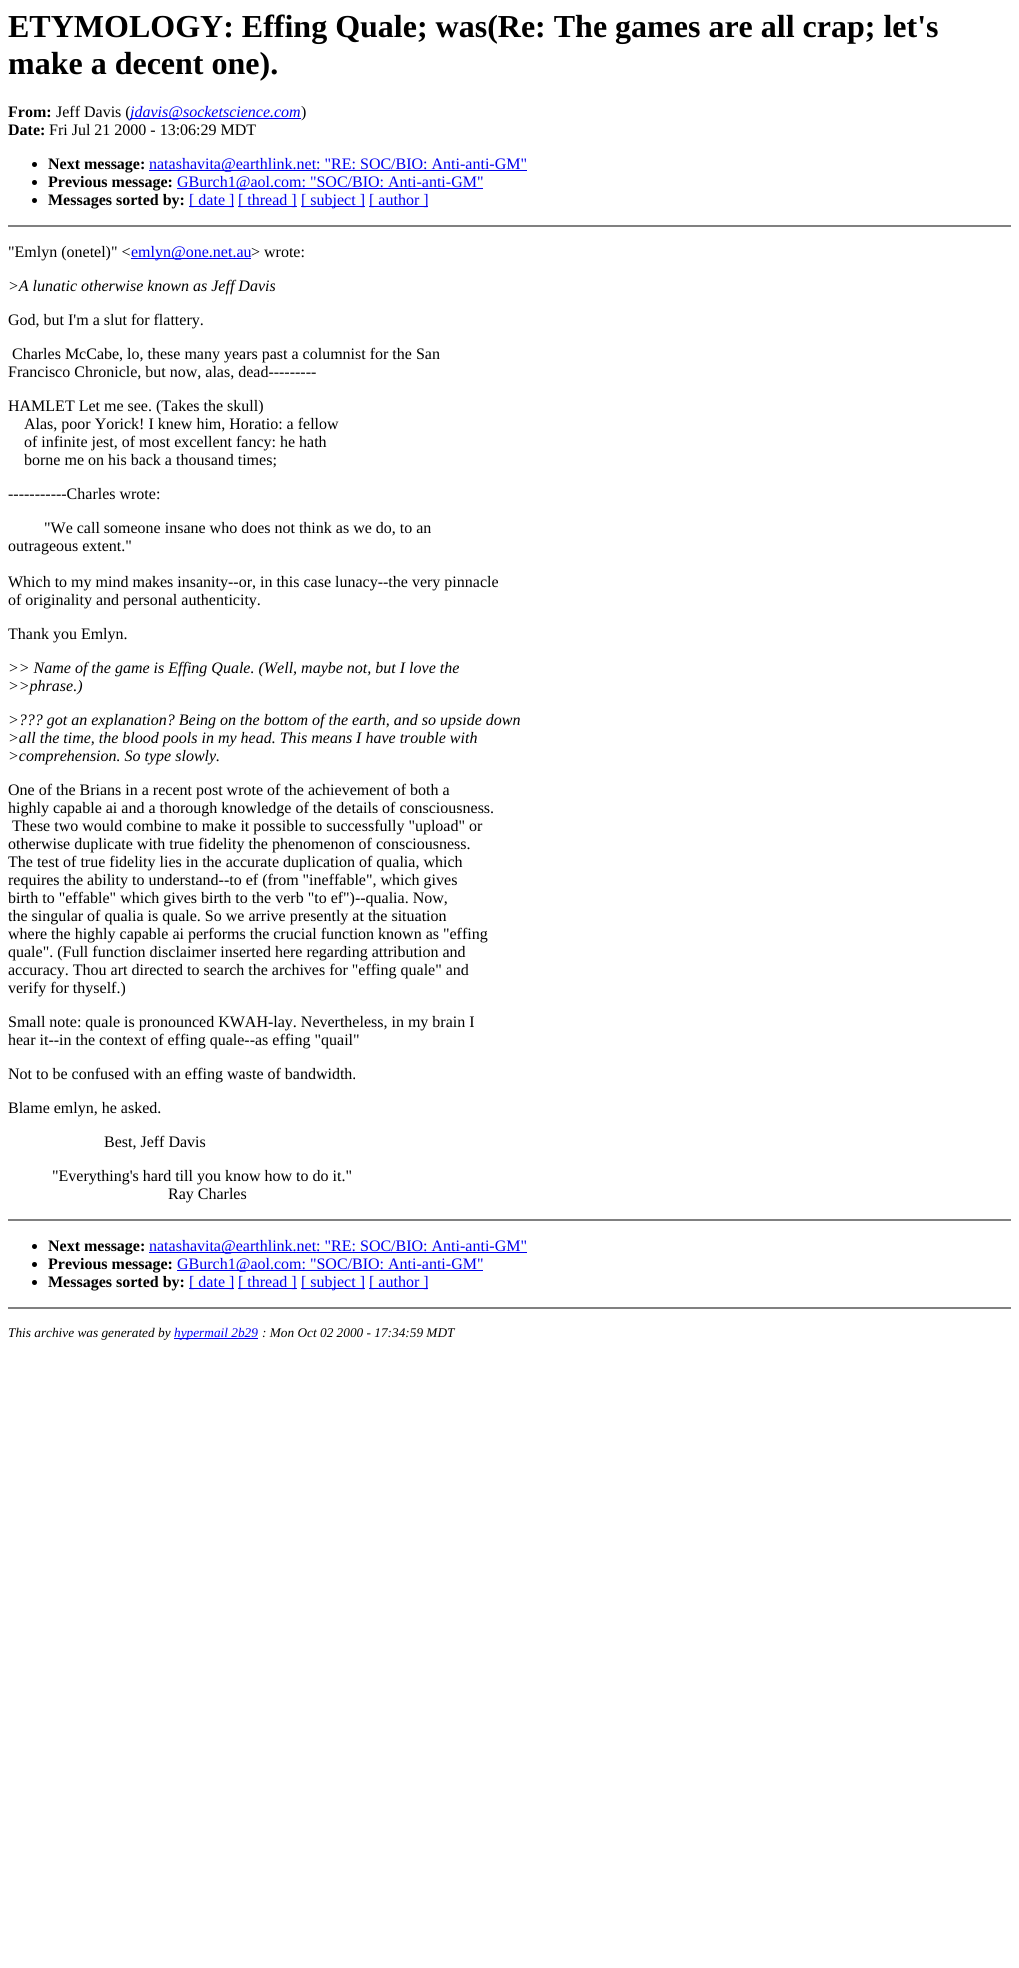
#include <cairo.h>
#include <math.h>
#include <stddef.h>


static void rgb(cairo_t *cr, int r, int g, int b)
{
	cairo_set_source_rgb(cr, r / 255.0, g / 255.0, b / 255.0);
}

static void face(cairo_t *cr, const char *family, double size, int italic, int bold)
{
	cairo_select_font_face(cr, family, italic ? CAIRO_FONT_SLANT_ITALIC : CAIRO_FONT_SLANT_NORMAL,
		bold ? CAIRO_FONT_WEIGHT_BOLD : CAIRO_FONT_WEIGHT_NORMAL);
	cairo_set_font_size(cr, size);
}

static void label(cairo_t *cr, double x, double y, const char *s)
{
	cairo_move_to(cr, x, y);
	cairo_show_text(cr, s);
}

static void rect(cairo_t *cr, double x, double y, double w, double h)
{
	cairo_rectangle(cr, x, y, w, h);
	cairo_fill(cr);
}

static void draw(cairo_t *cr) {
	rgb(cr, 255, 255, 255);
	cairo_paint(cr);
	face(cr, "Liberation Serif", 32, 0, 1);
	rgb(cr, 0, 0, 0);
	label(cr, 8, 37, "ETYMOLOGY: Effing Quale; was(Re: The games are all crap; let's");
	label(cr, 8, 74, "make a decent one).");
	face(cr, "Liberation Serif", 16, 0, 1);
	label(cr, 8, 117, "From:");
	face(cr, "Liberation Serif", 16, 0, 0);
	label(cr, 56, 117, "Jeff Davis (");
	rgb(cr, 0, 0, 238);
	rect(cr, 130, 118, 171, 1);
	face(cr, "Liberation Serif", 16, 1, 0);
	label(cr, 130, 117, "jdavis@socketscience.com");
	face(cr, "Liberation Serif", 16, 0, 0);
	rgb(cr, 0, 0, 0);
	label(cr, 301, 117, ")");
	face(cr, "Liberation Serif", 16, 0, 1);
	label(cr, 8, 135, "Date:");
	face(cr, "Liberation Serif", 16, 0, 0);
	label(cr, 49, 135, "Fri Jul 21 2000 - 13:06:29 MDT");
	cairo_new_path(cr);
	cairo_arc(cr, 34.5, 164.5, 2.5, 0, 2 * M_PI);
	cairo_fill(cr);
	face(cr, "Liberation Serif", 16, 0, 1);
	label(cr, 48, 169, "Next message:");
	rgb(cr, 0, 0, 238);
	rect(cr, 149, 170, 378, 1);
	face(cr, "Liberation Serif", 16, 0, 0);
	label(cr, 149, 169, "natashavita@earthlink.net: \"RE: SOC/BIO: Anti-anti-GM\"");
	rgb(cr, 0, 0, 0);
	cairo_new_path(cr);
	cairo_arc(cr, 34.5, 182.5, 2.5, 0, 2 * M_PI);
	cairo_fill(cr);
	face(cr, "Liberation Serif", 16, 0, 1);
	label(cr, 48, 187, "Previous message:");
	rgb(cr, 0, 0, 238);
	rect(cr, 177, 188, 306, 1);
	face(cr, "Liberation Serif", 16, 0, 0);
	label(cr, 177, 187, "GBurch1@aol.com: \"SOC/BIO: Anti-anti-GM\"");
	rgb(cr, 0, 0, 0);
	cairo_new_path(cr);
	cairo_arc(cr, 34.5, 200.5, 2.5, 0, 2 * M_PI);
	cairo_fill(cr);
	face(cr, "Liberation Serif", 16, 0, 1);
	label(cr, 48, 205, "Messages sorted by:");
	rgb(cr, 0, 0, 238);
	rect(cr, 189, 206, 45, 1);
	face(cr, "Liberation Serif", 16, 0, 0);
	label(cr, 189, 205, "[ date ]");
	rect(cr, 238, 206, 59, 1);
	label(cr, 238, 205, "[ thread ]");
	rect(cr, 301, 206, 64, 1);
	label(cr, 301, 205, "[ subject ]");
	rect(cr, 369, 206, 59, 1);
	label(cr, 369, 205, "[ author ]");
	rgb(cr, 128, 128, 128);
	rect(cr, 8, 225, 1003, 2);
	rgb(cr, 0, 0, 0);
	label(cr, 8, 257, "\"Emlyn (onetel)\" <");
	rgb(cr, 0, 0, 238);
	rect(cr, 131, 258, 120, 1);
	label(cr, 131, 257, "emlyn@one.net.au");
	rgb(cr, 0, 0, 0);
	label(cr, 251, 257, "> wrote:");
	face(cr, "Liberation Serif", 16, 1, 0);
	label(cr, 8, 291, ">A lunatic otherwise known as Jeff Davis");
	face(cr, "Liberation Serif", 16, 0, 0);
	label(cr, 8, 325, "God, but I'm a slut for flattery.");
	label(cr, 12, 359, "Charles McCabe, lo, these many years past a columnist for the San");
	label(cr, 8, 377, "Francisco Chronicle, but now, alas, dead---------");
	label(cr, 8, 411, "HAMLET Let me see. (Takes the skull)");
	label(cr, 24, 429, "Alas, poor Yorick! I knew him, Horatio: a fellow");
	label(cr, 24, 447, "of infinite jest, of most excellent fancy: he hath");
	label(cr, 24, 465, "borne me on his back a thousand times;");
	label(cr, 8, 499, "-----------Charles wrote:");
	label(cr, 44, 533, "\"We call someone insane who does not think as we do, to an");
	label(cr, 8, 551, "outrageous extent.\"");
	label(cr, 8, 587, "Which to my mind makes insanity--or, in this case lunacy--the very pinnacle");
	label(cr, 8, 605, "of originality and personal authenticity.");
	label(cr, 8, 639, "Thank you Emlyn.");
	face(cr, "Liberation Serif", 16, 1, 0);
	label(cr, 8, 673, ">> Name of the game is Effing Quale. (Well, maybe not, but I love the");
	label(cr, 8, 691, ">>phrase.)");
	label(cr, 8, 725, ">?\077? got an explanation? Being on the bottom of the earth, and so upside down");
	label(cr, 8, 743, ">all the time, the blood pools in my head. This means I have trouble with");
	label(cr, 8, 761, ">comprehension. So type slowly.");
	face(cr, "Liberation Serif", 16, 0, 0);
	label(cr, 8, 795, "One of the Brians in a recent post wrote of the achievement of both a");
	label(cr, 8, 813, "highly capable ai and a thorough knowledge of the details of consciousness.");
	label(cr, 12, 831, "These two would combine to make it possible to successfully \"upload\" or");
	label(cr, 8, 849, "otherwise duplicate with true fidelity the phenomenon of consciousness.");
	label(cr, 8, 867, "The test of true fidelity lies in the accurate duplication of qualia, which");
	label(cr, 8, 885, "requires the ability to understand--to ef (from \"ineffable\", which gives");
	label(cr, 8, 903, "birth to \"effable\" which gives birth to the verb \"to ef\")--qualia. Now,");
	label(cr, 8, 921, "the singular of qualia is quale. So we arrive presently at the situation");
	label(cr, 8, 939, "where the highly capable ai performs the crucial function known as \"effing");
	label(cr, 8, 957, "quale\". (Full function disclaimer inserted here regarding attribution and");
	label(cr, 8, 975, "accuracy. Thou art directed to search the archives for \"effing quale\" and");
	label(cr, 8, 993, "verify for thyself.)");
	label(cr, 8, 1027, "Small note: quale is pronounced KWAH-lay. Nevertheless, in my brain I");
	label(cr, 8, 1045, "hear it--in the context of effing quale--as effing \"quail\"");
	label(cr, 8, 1079, "Not to be confused with an effing waste of bandwidth.");
	label(cr, 8, 1113, "Blame emlyn, he asked.");
	label(cr, 104, 1147, "Best, Jeff Davis");
	label(cr, 52, 1181, "\"Everything's hard till you know how to do it.\"");
	label(cr, 168, 1199, "Ray Charles");
	rgb(cr, 128, 128, 128);
	rect(cr, 8, 1219, 1003, 2);
	rgb(cr, 0, 0, 0);
	cairo_new_path(cr);
	cairo_arc(cr, 34.5, 1246.5, 2.5, 0, 2 * M_PI);
	cairo_fill(cr);
	face(cr, "Liberation Serif", 16, 0, 1);
	label(cr, 48, 1251, "Next message:");
	rgb(cr, 0, 0, 238);
	rect(cr, 149, 1252, 378, 1);
	face(cr, "Liberation Serif", 16, 0, 0);
	label(cr, 149, 1251, "natashavita@earthlink.net: \"RE: SOC/BIO: Anti-anti-GM\"");
	rgb(cr, 0, 0, 0);
	cairo_new_path(cr);
	cairo_arc(cr, 34.5, 1264.5, 2.5, 0, 2 * M_PI);
	cairo_fill(cr);
	face(cr, "Liberation Serif", 16, 0, 1);
	label(cr, 48, 1269, "Previous message:");
	rgb(cr, 0, 0, 238);
	rect(cr, 177, 1270, 306, 1);
	face(cr, "Liberation Serif", 16, 0, 0);
	label(cr, 177, 1269, "GBurch1@aol.com: \"SOC/BIO: Anti-anti-GM\"");
	rgb(cr, 0, 0, 0);
	cairo_new_path(cr);
	cairo_arc(cr, 34.5, 1282.5, 2.5, 0, 2 * M_PI);
	cairo_fill(cr);
	face(cr, "Liberation Serif", 16, 0, 1);
	label(cr, 48, 1287, "Messages sorted by:");
	rgb(cr, 0, 0, 238);
	rect(cr, 189, 1288, 45, 1);
	face(cr, "Liberation Serif", 16, 0, 0);
	label(cr, 189, 1287, "[ date ]");
	rect(cr, 238, 1288, 59, 1);
	label(cr, 238, 1287, "[ thread ]");
	rect(cr, 301, 1288, 64, 1);
	label(cr, 301, 1287, "[ subject ]");
	rect(cr, 369, 1288, 59, 1);
	label(cr, 369, 1287, "[ author ]");
	rgb(cr, 128, 128, 128);
	rect(cr, 8, 1307, 1003, 2);
	face(cr, "Liberation Serif", 13.3, 1, 0);
	rgb(cr, 0, 0, 0);
	label(cr, 8, 1337, "This archive was generated by");
	rgb(cr, 0, 0, 238);
	rect(cr, 174, 1338, 84, 1);
	label(cr, 174, 1337, "hypermail 2b29");
	rgb(cr, 0, 0, 0);
	label(cr, 262, 1337, ": Mon Oct 02 2000 - 17:34:59 MDT");
}

int main(void) {
	cairo_surface_t *surface = cairo_image_surface_create(CAIRO_FORMAT_RGB24, 1019, 1968);
	cairo_t *cr = cairo_create(surface);
	cairo_font_options_t *options = cairo_font_options_create();
	cairo_font_options_set_hint_metrics(options, CAIRO_HINT_METRICS_OFF);
	cairo_font_options_set_hint_style(options, CAIRO_HINT_STYLE_NONE);
	cairo_set_font_options(cr, options);
	cairo_set_miter_limit(cr, 4);
	draw(cr);
	cairo_surface_write_to_png(surface, "render.png");
	cairo_font_options_destroy(options);
	cairo_destroy(cr);
	cairo_surface_destroy(surface);
	return 0;
}
